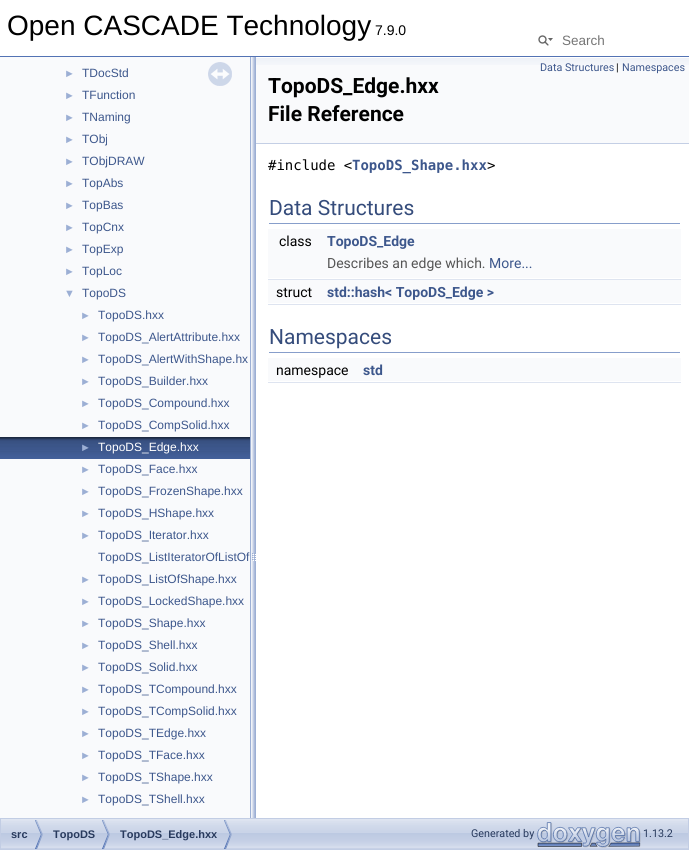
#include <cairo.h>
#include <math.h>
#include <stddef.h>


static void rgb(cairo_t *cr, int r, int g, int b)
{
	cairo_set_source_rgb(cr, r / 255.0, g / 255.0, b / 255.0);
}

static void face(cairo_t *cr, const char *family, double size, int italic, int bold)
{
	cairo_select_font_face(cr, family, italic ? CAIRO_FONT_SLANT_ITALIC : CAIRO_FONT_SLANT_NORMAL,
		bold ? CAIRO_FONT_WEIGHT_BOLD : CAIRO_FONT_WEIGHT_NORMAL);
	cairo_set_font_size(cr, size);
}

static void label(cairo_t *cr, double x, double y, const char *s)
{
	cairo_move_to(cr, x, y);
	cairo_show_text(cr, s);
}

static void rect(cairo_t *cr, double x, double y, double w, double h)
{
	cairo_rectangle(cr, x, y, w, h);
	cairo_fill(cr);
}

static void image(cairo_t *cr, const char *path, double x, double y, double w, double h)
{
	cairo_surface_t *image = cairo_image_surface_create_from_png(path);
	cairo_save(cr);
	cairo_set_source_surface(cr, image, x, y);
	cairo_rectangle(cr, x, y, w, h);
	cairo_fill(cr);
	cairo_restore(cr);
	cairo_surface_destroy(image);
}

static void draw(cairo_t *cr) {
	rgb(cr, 255, 255, 255);
	cairo_paint(cr);
	rgb(cr, 83, 115, 180);
	rect(cr, 0, 56, 689, 1);
	face(cr, "Liberation Sans", 28, 0, 0);
	rgb(cr, 0, 0, 0);
	label(cr, 7, 35, "Open CASCADE Technology");
	face(cr, "Liberation Sans", 14, 0, 0);
	label(cr, 375, 35, "7.9.0");
	image(cr, "image0.png", 538, 35, 15, 11);
	face(cr, "Liberation Sans", 13.5, 0, 0);
	rgb(cr, 117, 117, 117);
	label(cr, 562, 45, "Search");
	rgb(cr, 249, 250, 252);
	rect(cr, 0, 57, 250, 761);
	image(cr, "image1.png", 208, 62, 24, 24);
	face(cr, "Liberation Sans", 11, 0, 0);
	rgb(cr, 156, 175, 212);
	label(cr, 64, 77, "►");
	face(cr, "Liberation Sans", 12, 0, 0);
	rgb(cr, 61, 87, 140);
	label(cr, 82, 77, "TDocStd");
	face(cr, "Liberation Sans", 11, 0, 0);
	rgb(cr, 156, 175, 212);
	label(cr, 64, 99, "►");
	face(cr, "Liberation Sans", 12, 0, 0);
	rgb(cr, 61, 87, 140);
	label(cr, 82, 99, "TFunction");
	face(cr, "Liberation Sans", 11, 0, 0);
	rgb(cr, 156, 175, 212);
	label(cr, 64, 121, "►");
	face(cr, "Liberation Sans", 12, 0, 0);
	rgb(cr, 61, 87, 140);
	label(cr, 82, 121, "TNaming");
	face(cr, "Liberation Sans", 11, 0, 0);
	rgb(cr, 156, 175, 212);
	label(cr, 64, 143, "►");
	face(cr, "Liberation Sans", 12, 0, 0);
	rgb(cr, 61, 87, 140);
	label(cr, 82, 143, "TObj");
	face(cr, "Liberation Sans", 11, 0, 0);
	rgb(cr, 156, 175, 212);
	label(cr, 64, 165, "►");
	face(cr, "Liberation Sans", 12, 0, 0);
	rgb(cr, 61, 87, 140);
	label(cr, 82, 165, "TObjDRAW");
	face(cr, "Liberation Sans", 11, 0, 0);
	rgb(cr, 156, 175, 212);
	label(cr, 64, 187, "►");
	face(cr, "Liberation Sans", 12, 0, 0);
	rgb(cr, 61, 87, 140);
	label(cr, 82, 187, "TopAbs");
	face(cr, "Liberation Sans", 11, 0, 0);
	rgb(cr, 156, 175, 212);
	label(cr, 64, 209, "►");
	face(cr, "Liberation Sans", 12, 0, 0);
	rgb(cr, 61, 87, 140);
	label(cr, 82, 209, "TopBas");
	face(cr, "Liberation Sans", 11, 0, 0);
	rgb(cr, 156, 175, 212);
	label(cr, 64, 231, "►");
	face(cr, "Liberation Sans", 12, 0, 0);
	rgb(cr, 61, 87, 140);
	label(cr, 82, 231, "TopCnx");
	face(cr, "Liberation Sans", 11, 0, 0);
	rgb(cr, 156, 175, 212);
	label(cr, 64, 253, "►");
	face(cr, "Liberation Sans", 12, 0, 0);
	rgb(cr, 61, 87, 140);
	label(cr, 82, 253, "TopExp");
	face(cr, "Liberation Sans", 11, 0, 0);
	rgb(cr, 156, 175, 212);
	label(cr, 64, 275, "►");
	face(cr, "Liberation Sans", 12, 0, 0);
	rgb(cr, 61, 87, 140);
	label(cr, 82, 275, "TopLoc");
	face(cr, "Liberation Sans", 11, 0, 0);
	rgb(cr, 156, 175, 212);
	label(cr, 64, 297, "▼");
	face(cr, "Liberation Sans", 12, 0, 0);
	rgb(cr, 61, 87, 140);
	label(cr, 82, 297, "TopoDS");
	face(cr, "Liberation Sans", 11, 0, 0);
	rgb(cr, 156, 175, 212);
	label(cr, 80, 319, "►");
	face(cr, "Liberation Sans", 12, 0, 0);
	rgb(cr, 61, 87, 140);
	label(cr, 98, 319, "TopoDS.hxx");
	face(cr, "Liberation Sans", 11, 0, 0);
	rgb(cr, 156, 175, 212);
	label(cr, 80, 341, "►");
	face(cr, "Liberation Sans", 12, 0, 0);
	rgb(cr, 61, 87, 140);
	label(cr, 98, 341, "TopoDS_AlertAttribute.hxx");
	face(cr, "Liberation Sans", 11, 0, 0);
	rgb(cr, 156, 175, 212);
	label(cr, 80, 363, "►");
	face(cr, "Liberation Sans", 12, 0, 0);
	rgb(cr, 61, 87, 140);
	label(cr, 98, 363, "TopoDS_AlertWithShape.hx");
	face(cr, "Liberation Sans", 11, 0, 0);
	rgb(cr, 156, 175, 212);
	label(cr, 80, 385, "►");
	face(cr, "Liberation Sans", 12, 0, 0);
	rgb(cr, 61, 87, 140);
	label(cr, 98, 385, "TopoDS_Builder.hxx");
	face(cr, "Liberation Sans", 11, 0, 0);
	rgb(cr, 156, 175, 212);
	label(cr, 80, 407, "►");
	face(cr, "Liberation Sans", 12, 0, 0);
	rgb(cr, 61, 87, 140);
	label(cr, 98, 407, "TopoDS_Compound.hxx");
	face(cr, "Liberation Sans", 11, 0, 0);
	rgb(cr, 156, 175, 212);
	label(cr, 80, 429, "►");
	face(cr, "Liberation Sans", 12, 0, 0);
	rgb(cr, 61, 87, 140);
	label(cr, 98, 429, "TopoDS_CompSolid.hxx");
	image(cr, "image2.png", 0, 437, 250, 22);
	face(cr, "Liberation Sans", 11, 0, 0);
	rgb(cr, 156, 175, 212);
	label(cr, 80, 451, "►");
	face(cr, "Liberation Sans", 12, 0, 0);
	rgb(cr, 255, 255, 255);
	label(cr, 98, 451, "TopoDS_Edge.hxx");
	face(cr, "Liberation Sans", 11, 0, 0);
	rgb(cr, 156, 175, 212);
	label(cr, 80, 473, "►");
	face(cr, "Liberation Sans", 12, 0, 0);
	rgb(cr, 61, 87, 140);
	label(cr, 98, 473, "TopoDS_Face.hxx");
	face(cr, "Liberation Sans", 11, 0, 0);
	rgb(cr, 156, 175, 212);
	label(cr, 80, 495, "►");
	face(cr, "Liberation Sans", 12, 0, 0);
	rgb(cr, 61, 87, 140);
	label(cr, 98, 495, "TopoDS_FrozenShape.hxx");
	face(cr, "Liberation Sans", 11, 0, 0);
	rgb(cr, 156, 175, 212);
	label(cr, 80, 517, "►");
	face(cr, "Liberation Sans", 12, 0, 0);
	rgb(cr, 61, 87, 140);
	label(cr, 98, 517, "TopoDS_HShape.hxx");
	face(cr, "Liberation Sans", 11, 0, 0);
	rgb(cr, 156, 175, 212);
	label(cr, 80, 539, "►");
	face(cr, "Liberation Sans", 12, 0, 0);
	rgb(cr, 61, 87, 140);
	label(cr, 98, 539, "TopoDS_Iterator.hxx");
	label(cr, 98, 561, "TopoDS_ListIteratorOfListOf");
	face(cr, "Liberation Sans", 11, 0, 0);
	rgb(cr, 156, 175, 212);
	label(cr, 80, 583, "►");
	face(cr, "Liberation Sans", 12, 0, 0);
	rgb(cr, 61, 87, 140);
	label(cr, 98, 583, "TopoDS_ListOfShape.hxx");
	face(cr, "Liberation Sans", 11, 0, 0);
	rgb(cr, 156, 175, 212);
	label(cr, 80, 605, "►");
	face(cr, "Liberation Sans", 12, 0, 0);
	rgb(cr, 61, 87, 140);
	label(cr, 98, 605, "TopoDS_LockedShape.hxx");
	face(cr, "Liberation Sans", 11, 0, 0);
	rgb(cr, 156, 175, 212);
	label(cr, 80, 627, "►");
	face(cr, "Liberation Sans", 12, 0, 0);
	rgb(cr, 61, 87, 140);
	label(cr, 98, 627, "TopoDS_Shape.hxx");
	face(cr, "Liberation Sans", 11, 0, 0);
	rgb(cr, 156, 175, 212);
	label(cr, 80, 649, "►");
	face(cr, "Liberation Sans", 12, 0, 0);
	rgb(cr, 61, 87, 140);
	label(cr, 98, 649, "TopoDS_Shell.hxx");
	face(cr, "Liberation Sans", 11, 0, 0);
	rgb(cr, 156, 175, 212);
	label(cr, 80, 671, "►");
	face(cr, "Liberation Sans", 12, 0, 0);
	rgb(cr, 61, 87, 140);
	label(cr, 98, 671, "TopoDS_Solid.hxx");
	face(cr, "Liberation Sans", 11, 0, 0);
	rgb(cr, 156, 175, 212);
	label(cr, 80, 693, "►");
	face(cr, "Liberation Sans", 12, 0, 0);
	rgb(cr, 61, 87, 140);
	label(cr, 98, 693, "TopoDS_TCompound.hxx");
	face(cr, "Liberation Sans", 11, 0, 0);
	rgb(cr, 156, 175, 212);
	label(cr, 80, 715, "►");
	face(cr, "Liberation Sans", 12, 0, 0);
	rgb(cr, 61, 87, 140);
	label(cr, 98, 715, "TopoDS_TCompSolid.hxx");
	face(cr, "Liberation Sans", 11, 0, 0);
	rgb(cr, 156, 175, 212);
	label(cr, 80, 737, "►");
	face(cr, "Liberation Sans", 12, 0, 0);
	rgb(cr, 61, 87, 140);
	label(cr, 98, 737, "TopoDS_TEdge.hxx");
	face(cr, "Liberation Sans", 11, 0, 0);
	rgb(cr, 156, 175, 212);
	label(cr, 80, 759, "►");
	face(cr, "Liberation Sans", 12, 0, 0);
	rgb(cr, 61, 87, 140);
	label(cr, 98, 759, "TopoDS_TFace.hxx");
	face(cr, "Liberation Sans", 11, 0, 0);
	rgb(cr, 156, 175, 212);
	label(cr, 80, 781, "►");
	face(cr, "Liberation Sans", 12, 0, 0);
	rgb(cr, 61, 87, 140);
	label(cr, 98, 781, "TopoDS_TShape.hxx");
	face(cr, "Liberation Sans", 11, 0, 0);
	rgb(cr, 156, 175, 212);
	label(cr, 80, 803, "►");
	face(cr, "Liberation Sans", 12, 0, 0);
	rgb(cr, 61, 87, 140);
	label(cr, 98, 803, "TopoDS_TShell.hxx");
	image(cr, "image3.png", 250, 57, 6, 761);
	rgb(cr, 249, 250, 252);
	rect(cr, 256, 65, 433, 78);
	image(cr, "image4.png", 256, 57, 433, 8);
	rgb(cr, 196, 207, 229);
	rect(cr, 256, 143, 433, 1);
	face(cr, "Roboto", 10.75, 0, 0);
	rgb(cr, 61, 87, 140);
	label(cr, 540, 71, "Data Structures");
	rgb(cr, 0, 0, 0);
	label(cr, 616, 71, "|");
	rgb(cr, 61, 87, 140);
	label(cr, 622, 71, "Namespaces");
	face(cr, "Roboto", 21, 0, 1);
	rgb(cr, 0, 0, 0);
	label(cr, 268, 93, "TopoDS_Edge.hxx");
	label(cr, 268, 121, "File Reference");
	face(cr, "DejaVu Sans Mono", 14, 0, 0);
	label(cr, 268, 170, "#include <");
	face(cr, "DejaVu Sans Mono", 14, 0, 1);
	rgb(cr, 61, 87, 140);
	label(cr, 352, 170, "TopoDS_Shape.hxx");
	face(cr, "DejaVu Sans Mono", 14, 0, 0);
	rgb(cr, 0, 0, 0);
	label(cr, 487, 170, ">");
	rgb(cr, 135, 158, 203);
	rect(cr, 269, 223, 411, 1);
	face(cr, "Roboto", 21, 0, 0);
	rgb(cr, 53, 76, 123);
	label(cr, 269, 215, "Data Structures");
	rgb(cr, 249, 250, 252);
	rect(cr, 268, 229, 413, 23);
	face(cr, "Roboto", 14, 0, 0);
	rgb(cr, 0, 0, 0);
	label(cr, 279, 246, "class");
	face(cr, "Roboto", 14, 0, 1);
	rgb(cr, 61, 87, 140);
	label(cr, 327, 246, "TopoDS_Edge");
	rgb(cr, 249, 250, 252);
	rect(cr, 268, 252, 413, 26);
	face(cr, "Roboto", 14, 0, 0);
	rgb(cr, 85, 85, 85);
	label(cr, 327, 268, "Describes an edge which.");
	rgb(cr, 61, 87, 140);
	label(cr, 489, 268, "More...");
	rgb(cr, 222, 228, 240);
	rect(cr, 268, 279, 413, 1);
	rgb(cr, 249, 250, 252);
	rect(cr, 268, 280, 413, 23);
	rgb(cr, 0, 0, 0);
	label(cr, 276, 297, "struct");
	face(cr, "Roboto", 14, 0, 1);
	rgb(cr, 61, 87, 140);
	label(cr, 327, 297, "std::hash< TopoDS_Edge >");
	rgb(cr, 222, 228, 240);
	rect(cr, 268, 304, 413, 1);
	rgb(cr, 135, 158, 203);
	rect(cr, 269, 352, 411, 1);
	face(cr, "Roboto", 21, 0, 0);
	rgb(cr, 53, 76, 123);
	label(cr, 269, 344, "Namespaces");
	rgb(cr, 249, 250, 252);
	rect(cr, 268, 358, 413, 23);
	face(cr, "Roboto", 14, 0, 0);
	rgb(cr, 0, 0, 0);
	label(cr, 276, 375, "namespace");
	face(cr, "Roboto", 14, 0, 1);
	rgb(cr, 61, 87, 140);
	label(cr, 363, 375, "std");
	rgb(cr, 222, 228, 240);
	rect(cr, 268, 382, 413, 1);
	image(cr, "image5.png", 1, 819, 687, 30);
	cairo_rectangle(cr, 0.5, 818.5, 688, 31);
	rgb(cr, 194, 205, 228);
	cairo_set_line_width(cr, 1);
	cairo_stroke(cr);
	image(cr, "image6.png", 35, 820, 8, 29);
	face(cr, "Liberation Sans", 11, 0, 1);
	rgb(cr, 40, 58, 93);
	label(cr, 11, 838, "src");
	image(cr, "image6.png", 102, 820, 8, 29);
	label(cr, 53, 838, "TopoDS");
	image(cr, "image6.png", 224, 820, 8, 29);
	label(cr, 120, 838, "TopoDS_Edge.hxx");
	face(cr, "Roboto", 10.75, 0, 0);
	label(cr, 471, 837, "Generated by");
	image(cr, "image7.png", 537, 822, 104, 26);
	label(cr, 643, 837, "1.13.2");
}

int main(void) {
	cairo_surface_t *surface = cairo_image_surface_create(CAIRO_FORMAT_RGB24, 689, 850);
	cairo_t *cr = cairo_create(surface);
	cairo_font_options_t *options = cairo_font_options_create();
	cairo_font_options_set_hint_metrics(options, CAIRO_HINT_METRICS_OFF);
	cairo_font_options_set_hint_style(options, CAIRO_HINT_STYLE_NONE);
	cairo_set_font_options(cr, options);
	cairo_set_miter_limit(cr, 4);
	draw(cr);
	cairo_surface_write_to_png(surface, "render.png");
	cairo_font_options_destroy(options);
	cairo_destroy(cr);
	cairo_surface_destroy(surface);
	return 0;
}
